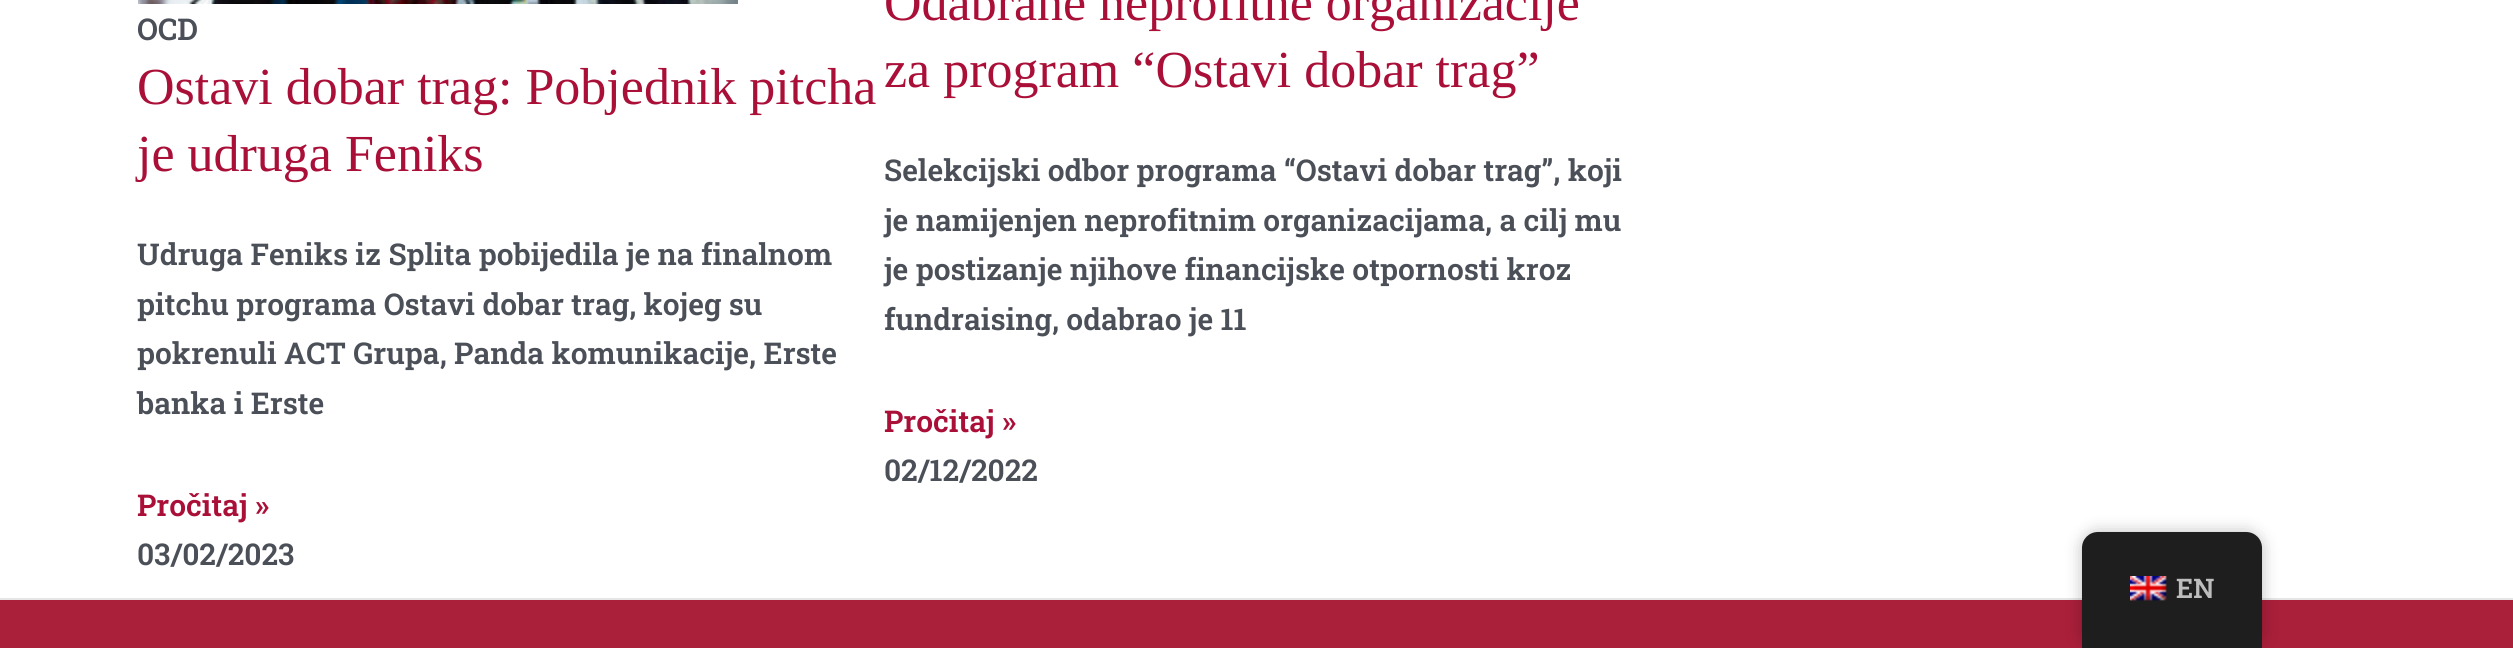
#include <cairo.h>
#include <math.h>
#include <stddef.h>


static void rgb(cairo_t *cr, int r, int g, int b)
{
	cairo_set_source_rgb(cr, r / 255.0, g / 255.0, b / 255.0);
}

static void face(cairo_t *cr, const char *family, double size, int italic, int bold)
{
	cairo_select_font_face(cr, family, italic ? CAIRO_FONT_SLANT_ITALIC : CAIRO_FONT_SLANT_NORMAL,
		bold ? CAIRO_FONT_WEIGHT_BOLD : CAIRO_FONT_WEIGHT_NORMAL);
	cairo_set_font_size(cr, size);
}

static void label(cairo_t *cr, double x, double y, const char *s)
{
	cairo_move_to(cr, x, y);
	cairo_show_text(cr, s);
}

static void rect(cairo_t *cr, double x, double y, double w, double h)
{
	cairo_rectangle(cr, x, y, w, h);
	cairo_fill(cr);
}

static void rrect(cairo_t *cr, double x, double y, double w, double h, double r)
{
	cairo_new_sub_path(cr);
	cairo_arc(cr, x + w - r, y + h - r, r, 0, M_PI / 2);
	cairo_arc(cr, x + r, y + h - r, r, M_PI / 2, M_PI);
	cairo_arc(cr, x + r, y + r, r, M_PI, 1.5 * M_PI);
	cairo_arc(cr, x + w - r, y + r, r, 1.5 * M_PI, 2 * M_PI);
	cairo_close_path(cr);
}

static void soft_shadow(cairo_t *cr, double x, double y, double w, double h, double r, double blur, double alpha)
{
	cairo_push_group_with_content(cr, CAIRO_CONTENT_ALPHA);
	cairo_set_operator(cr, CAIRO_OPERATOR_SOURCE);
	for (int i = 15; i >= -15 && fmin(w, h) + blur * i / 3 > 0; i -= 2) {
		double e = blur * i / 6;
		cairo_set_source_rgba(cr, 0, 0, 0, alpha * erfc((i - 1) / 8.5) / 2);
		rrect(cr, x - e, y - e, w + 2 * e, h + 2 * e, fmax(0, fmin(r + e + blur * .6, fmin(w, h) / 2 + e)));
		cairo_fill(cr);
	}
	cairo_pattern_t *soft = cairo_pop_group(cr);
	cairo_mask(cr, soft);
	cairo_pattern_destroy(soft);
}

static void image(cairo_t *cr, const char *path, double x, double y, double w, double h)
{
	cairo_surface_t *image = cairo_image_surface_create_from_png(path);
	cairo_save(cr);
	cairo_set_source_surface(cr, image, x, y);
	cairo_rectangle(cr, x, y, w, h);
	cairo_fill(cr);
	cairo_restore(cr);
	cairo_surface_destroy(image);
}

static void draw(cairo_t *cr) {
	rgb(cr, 255, 255, 255);
	cairo_paint(cr);
	image(cr, "image0.png", 138, 0, 600, 4);
	face(cr, "Roboto Slab SemiBold", 30, 0, 0);
	rgb(cr, 75, 79, 88);
	label(cr, 137, 40, "OCD");
	face(cr, "Liberation Serif", 52, 0, 0);
	rgb(cr, 170, 15, 56);
	label(cr, 137, 104, "Ostavi dobar trag: Pobjednik pitcha");
	label(cr, 137, 171, "je udruga Feniks");
	face(cr, "Roboto Slab SemiBold", 30, 0, 0);
	rgb(cr, 75, 79, 88);
	label(cr, 137, 265, "Udruga Feniks iz Splita pobijedila je na finalnom");
	label(cr, 137, 315, "pitchu programa Ostavi dobar trag, kojeg su");
	label(cr, 137, 364, "pokrenuli ACT Grupa, Panda komunikacije, Erste");
	label(cr, 137, 414, "banka i Erste");
	rgb(cr, 170, 15, 56);
	label(cr, 137, 516, "Pročitaj »");
	rgb(cr, 75, 79, 88);
	label(cr, 137, 565, "03/02/2023");
	face(cr, "Liberation Serif", 52, 0, 0);
	rgb(cr, 170, 15, 56);
	label(cr, 884, 20, "Odabrane neprofitne organizacije");
	label(cr, 884, 87, "za program “Ostavi dobar trag”");
	face(cr, "Roboto Slab SemiBold", 30, 0, 0);
	rgb(cr, 75, 79, 88);
	label(cr, 884, 181, "Selekcijski odbor programa “Ostavi dobar trag”, koji");
	label(cr, 884, 231, "je namijenjen neprofitnim organizacijama, a cilj mu");
	label(cr, 884, 280, "je postizanje njihove financijske otpornosti kroz");
	label(cr, 884, 330, "fundraising, odabrao je 11");
	rgb(cr, 170, 15, 56);
	label(cr, 884, 432, "Pročitaj »");
	rgb(cr, 75, 79, 88);
	label(cr, 884, 481, "02/12/2022");
	rgb(cr, 170, 31, 58);
	rect(cr, 0, 600, 2513, 48);
	rgb(cr, 229, 229, 229);
	rect(cr, 0, 598, 2513, 2);
	rgb(cr, 0, 0, 0);
	soft_shadow(cr, 2082, 532, 180, 116, 16, 8, 0.25);
	rgb(cr, 30, 30, 30);
	cairo_new_path(cr);
	cairo_move_to(cr, 2098, 532);
	cairo_line_to(cr, 2246, 532);
	cairo_curve_to(cr, 2255, 532, 2262, 539, 2262, 548);
	cairo_line_to(cr, 2262, 648);
	cairo_line_to(cr, 2082, 648);
	cairo_line_to(cr, 2082, 548);
	cairo_curve_to(cr, 2082, 539, 2089, 532, 2098, 532);
	cairo_close_path(cr);
	cairo_fill(cr);
	image(cr, "image1.png", 2130, 576, 37, 25);
	face(cr, "Roboto Slab SemiBold", 27, 0, 0);
	rgb(cr, 189, 189, 189);
	label(cr, 2176, 598, "EN");
}

int main(void) {
	cairo_surface_t *surface = cairo_image_surface_create(CAIRO_FORMAT_RGB24, 2513, 648);
	cairo_t *cr = cairo_create(surface);
	cairo_font_options_t *options = cairo_font_options_create();
	cairo_font_options_set_hint_metrics(options, CAIRO_HINT_METRICS_OFF);
	cairo_font_options_set_hint_style(options, CAIRO_HINT_STYLE_NONE);
	cairo_set_font_options(cr, options);
	cairo_set_miter_limit(cr, 4);
	draw(cr);
	cairo_surface_write_to_png(surface, "render.png");
	cairo_font_options_destroy(options);
	cairo_destroy(cr);
	cairo_surface_destroy(surface);
	return 0;
}
